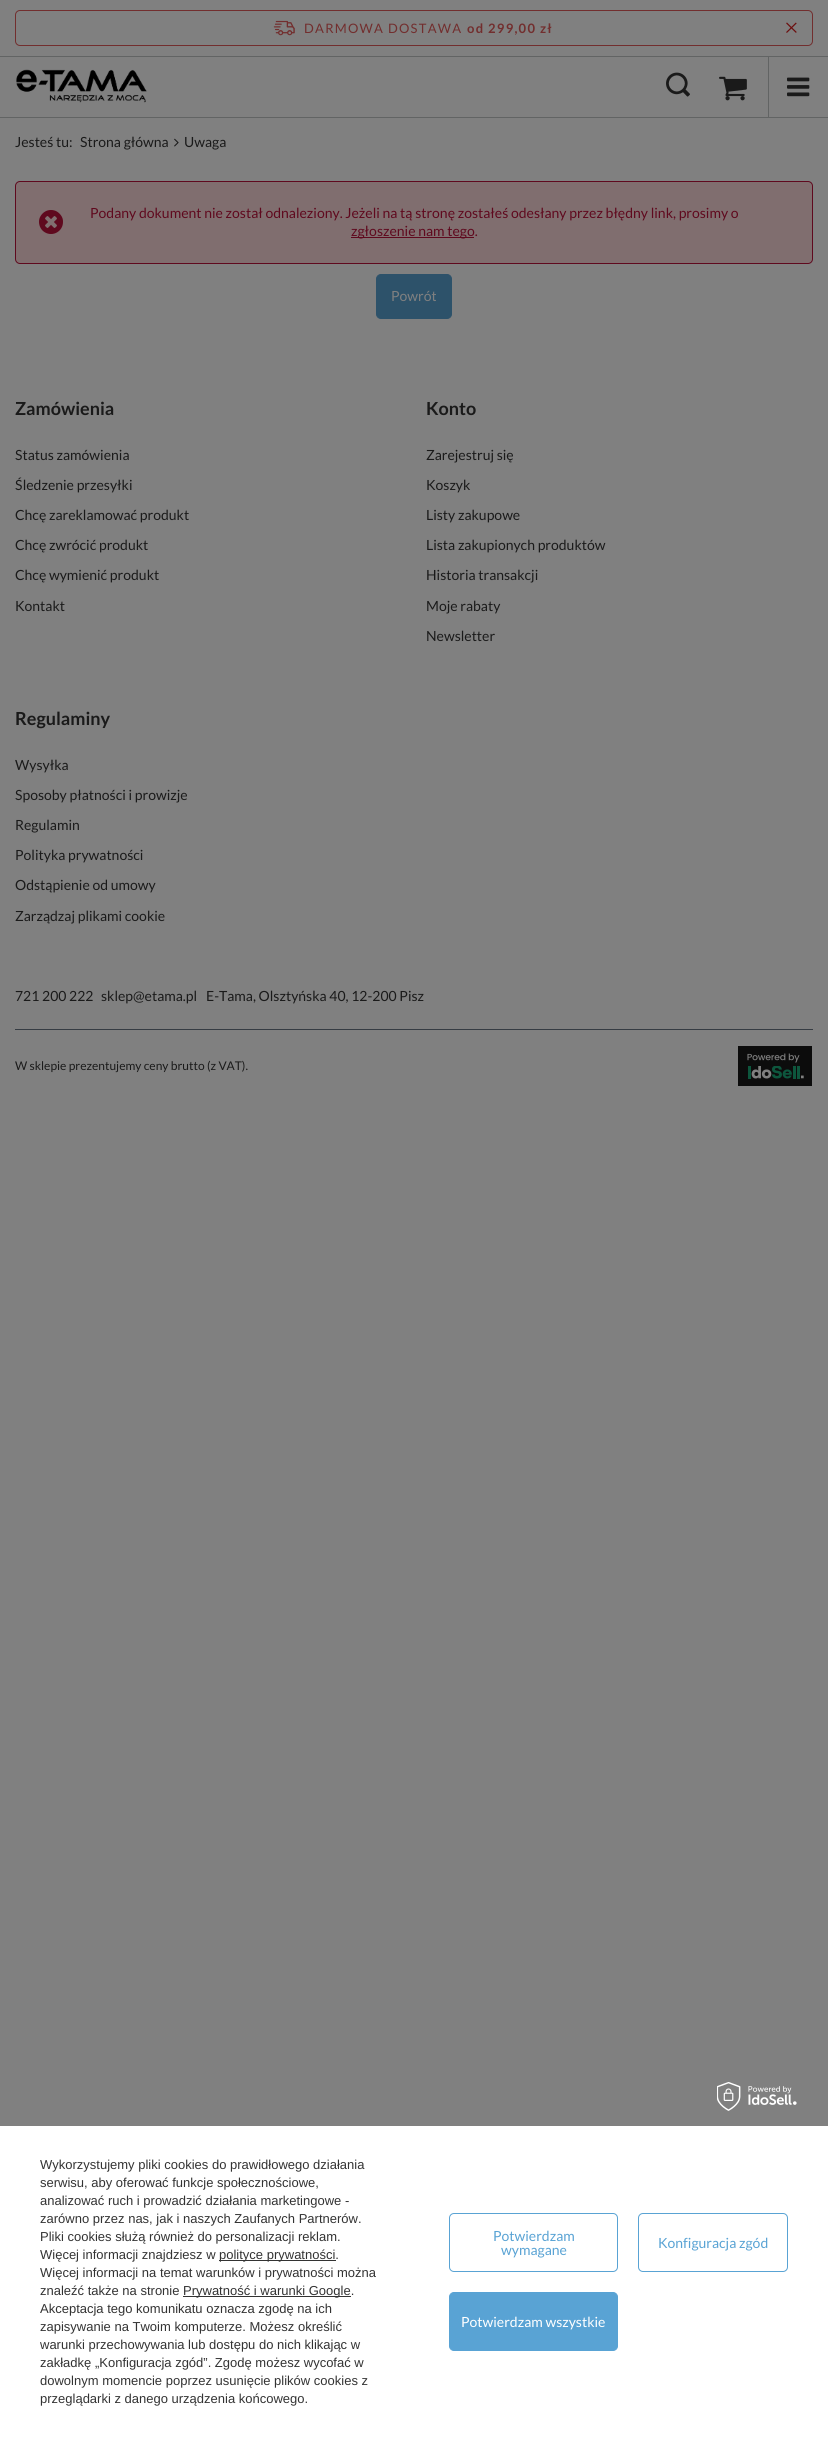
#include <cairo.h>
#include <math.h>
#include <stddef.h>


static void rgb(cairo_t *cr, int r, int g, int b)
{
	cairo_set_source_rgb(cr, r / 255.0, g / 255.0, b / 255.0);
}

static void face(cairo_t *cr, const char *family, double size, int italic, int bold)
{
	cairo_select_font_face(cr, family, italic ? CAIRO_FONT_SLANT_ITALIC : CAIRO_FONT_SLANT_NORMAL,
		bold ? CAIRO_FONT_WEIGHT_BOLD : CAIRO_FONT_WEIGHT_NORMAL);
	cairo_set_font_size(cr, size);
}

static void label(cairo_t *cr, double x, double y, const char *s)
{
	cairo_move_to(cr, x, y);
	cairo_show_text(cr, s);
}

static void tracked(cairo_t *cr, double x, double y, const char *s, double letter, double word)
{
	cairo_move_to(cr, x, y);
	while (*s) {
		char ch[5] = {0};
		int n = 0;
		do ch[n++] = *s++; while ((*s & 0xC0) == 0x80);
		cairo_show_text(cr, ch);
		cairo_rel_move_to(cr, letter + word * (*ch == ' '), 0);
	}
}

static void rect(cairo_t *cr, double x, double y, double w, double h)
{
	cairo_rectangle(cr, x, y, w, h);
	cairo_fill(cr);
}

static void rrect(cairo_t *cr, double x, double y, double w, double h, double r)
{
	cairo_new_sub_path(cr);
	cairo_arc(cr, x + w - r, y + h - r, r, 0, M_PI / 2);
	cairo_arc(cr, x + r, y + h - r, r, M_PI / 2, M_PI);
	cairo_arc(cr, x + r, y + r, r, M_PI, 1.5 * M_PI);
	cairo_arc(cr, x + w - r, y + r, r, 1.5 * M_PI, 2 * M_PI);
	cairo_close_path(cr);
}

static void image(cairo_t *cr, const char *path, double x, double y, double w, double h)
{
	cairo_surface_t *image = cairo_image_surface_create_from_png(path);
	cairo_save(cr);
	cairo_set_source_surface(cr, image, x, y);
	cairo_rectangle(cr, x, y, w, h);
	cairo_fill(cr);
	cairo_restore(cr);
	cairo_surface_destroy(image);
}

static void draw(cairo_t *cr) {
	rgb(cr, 128, 128, 128);
	cairo_paint(cr);
	rgb(cr, 98, 100, 100);
	rect(cr, 0, 117, 828, 1);
	rrect(cr, 15.5, 10.5, 797, 35, 4.5);
	rgb(cr, 114, 46, 46);
	cairo_set_line_width(cr, 1);
	cairo_stroke(cr);
	image(cr, "image0.png", 273, 20, 22, 16);
	face(cr, "Lato", 13, 0, 0);
	tracked(cr, 304, 33, "DARMOWA DOSTAWA", 1.25, 0);
	face(cr, "Lato", 13, 0, 1);
	tracked(cr, 467, 33, "od 299,00 zł", 1.25, 0);
	image(cr, "image1.png", 786, 22, 11, 11);
	rgb(cr, 98, 100, 100);
	rect(cr, 768, 56, 1, 61);
	rect(cr, 0, 56, 828, 1);
	image(cr, "image2.png", 16, 69, 131, 34);
	image(cr, "image3.png", 666, 72, 24, 25);
	image(cr, "image4.png", 719, 76, 28, 25);
	image(cr, "image5.png", 787, 77, 23, 20);
	face(cr, "Lato", 14, 0, 0);
	rgb(cr, 26, 26, 26);
	label(cr, 15, 147, "Jesteś tu:");
	label(cr, 80, 147, "Strona główna");
	image(cr, "image6.png", 174, 138, 5, 9);
	label(cr, 184, 147, "Uwaga");
	rgb(cr, 128, 110, 111);
	rrect(cr, 15.5, 181.5, 797, 82, 4.5);
	cairo_fill_preserve(cr);
	rgb(cr, 95, 9, 30);
	cairo_stroke(cr);
	image(cr, "image7.png", 39, 210, 24, 24);
	label(cr, 90, 218, "Podany dokument nie został odnaleziony. Jeżeli na tą stronę zostałeś odesłany przez błędny link, prosimy o");
	rect(cr, 351, 237, 123, 1);
	label(cr, 351, 236, "zgłoszenie nam tego.");
	rgb(cr, 45, 82, 106);
	rrect(cr, 376.5, 274.5, 75, 44, 4.5);
	cairo_fill_preserve(cr);
	cairo_stroke(cr);
	rgb(cr, 128, 128, 128);
	label(cr, 391, 301, "Powrót");
	face(cr, "Lato", 18, 0, 1);
	rgb(cr, 26, 26, 26);
	label(cr, 15, 415, "Zamówienia");
	face(cr, "Lato", 14, 0, 0);
	label(cr, 15, 460, "Status zamówienia");
	label(cr, 15, 490, "Śledzenie przesyłki");
	label(cr, 15, 520, "Chcę zareklamować produkt");
	label(cr, 15, 550, "Chcę zwrócić produkt");
	label(cr, 15, 580, "Chcę wymienić produkt");
	label(cr, 15, 611, "Kontakt");
	face(cr, "Lato", 18, 0, 1);
	label(cr, 426, 415, "Konto");
	face(cr, "Lato", 14, 0, 0);
	label(cr, 426, 460, "Zarejestruj się");
	label(cr, 426, 490, "Koszyk");
	label(cr, 426, 520, "Listy zakupowe");
	label(cr, 426, 550, "Lista zakupionych produktów");
	label(cr, 426, 580, "Historia transakcji");
	label(cr, 426, 611, "Moje rabaty");
	label(cr, 426, 641, "Newsletter");
	face(cr, "Lato", 18, 0, 1);
	label(cr, 15, 725, "Regulaminy");
	face(cr, "Lato", 14, 0, 0);
	label(cr, 15, 770, "Wysyłka");
	label(cr, 15, 800, "Sposoby płatności i prowizje");
	label(cr, 15, 830, "Regulamin");
	label(cr, 15, 860, "Polityka prywatności");
	label(cr, 15, 890, "Odstąpienie od umowy");
	label(cr, 15, 921, "Zarządzaj plikami cookie");
	rgb(cr, 54, 60, 67);
	rect(cr, 15, 1029, 798, 1);
	rgb(cr, 26, 26, 26);
	label(cr, 15, 1001, "721 200 222");
	label(cr, 101, 1001, "sklep@etama.pl");
	label(cr, 206, 1001, "E-Tama, Olsztyńska 40, 12-200 Pisz");
	face(cr, "Lato", 12, 0, 0);
	label(cr, 15, 1070, "W sklepie prezentujemy ceny brutto (z VAT).");
	image(cr, "image8.png", 738, 1046, 74, 40);
	rgb(cr, 255, 255, 255);
	rect(cr, 0, 2126, 828, 312);
	image(cr, "image9.png", 717, 2082, 80, 29);
	face(cr, "Liberation Sans", 13, 0, 0);
	rgb(cr, 51, 51, 51);
	label(cr, 40, 2169, "Wykorzystujemy pliki cookies do prawidłowego działania");
	label(cr, 40, 2187, "serwisu, aby oferować funkcje społecznościowe,");
	label(cr, 40, 2205, "analizować ruch i prowadzić działania marketingowe -");
	label(cr, 40, 2223, "zarówno przez nas, jak i naszych Zaufanych Partnerów.");
	label(cr, 40, 2241, "Pliki cookies służą również do personalizacji reklam.");
	label(cr, 40, 2259, "Więcej informacji znajdziesz w");
	rect(cr, 219, 2260, 117, 1);
	label(cr, 219, 2259, "polityce prywatności.");
	label(cr, 40, 2277, "Więcej informacji na temat warunków i prywatności można");
	label(cr, 40, 2295, "znaleźć także na stronie");
	rect(cr, 183, 2296, 168, 1);
	label(cr, 183, 2295, "Prywatność i warunki Google.");
	label(cr, 40, 2313, "Akceptacja tego komunikatu oznacza zgodę na ich");
	label(cr, 40, 2331, "zapisywanie na Twoim komputerze. Możesz określić");
	label(cr, 40, 2349, "warunki przechowywania lub dostępu do nich klikając w");
	label(cr, 40, 2367, "zakładkę „Konfiguracja zgód”. Zgodę możesz wycofać w");
	label(cr, 40, 2385, "dowolnym momencie poprzez usunięcie plików cookies z");
	label(cr, 40, 2403, "przeglądarki z danego urządzenia końcowego.");
	rrect(cr, 449.5, 2213.5, 168, 58, 4.5);
	rgb(cr, 89, 163, 212);
	cairo_stroke(cr);
	face(cr, "Lato", 14, 0, 0);
	label(cr, 493, 2241, "Potwierdzam");
	label(cr, 501, 2255, "wymagane");
	rrect(cr, 638.5, 2213.5, 149, 58, 4.5);
	cairo_stroke(cr);
	label(cr, 658, 2248, "Konfiguracja zgód");
	rrect(cr, 449.5, 2292.5, 168, 58, 4.5);
	cairo_fill_preserve(cr);
	cairo_stroke(cr);
	rgb(cr, 255, 255, 255);
	label(cr, 461, 2327, "Potwierdzam wszystkie");
}

int main(void) {
	cairo_surface_t *surface = cairo_image_surface_create(CAIRO_FORMAT_RGB24, 828, 2438);
	cairo_t *cr = cairo_create(surface);
	cairo_font_options_t *options = cairo_font_options_create();
	cairo_font_options_set_hint_metrics(options, CAIRO_HINT_METRICS_OFF);
	cairo_font_options_set_hint_style(options, CAIRO_HINT_STYLE_NONE);
	cairo_set_font_options(cr, options);
	cairo_set_miter_limit(cr, 4);
	draw(cr);
	cairo_surface_write_to_png(surface, "render.png");
	cairo_font_options_destroy(options);
	cairo_destroy(cr);
	cairo_surface_destroy(surface);
	return 0;
}
